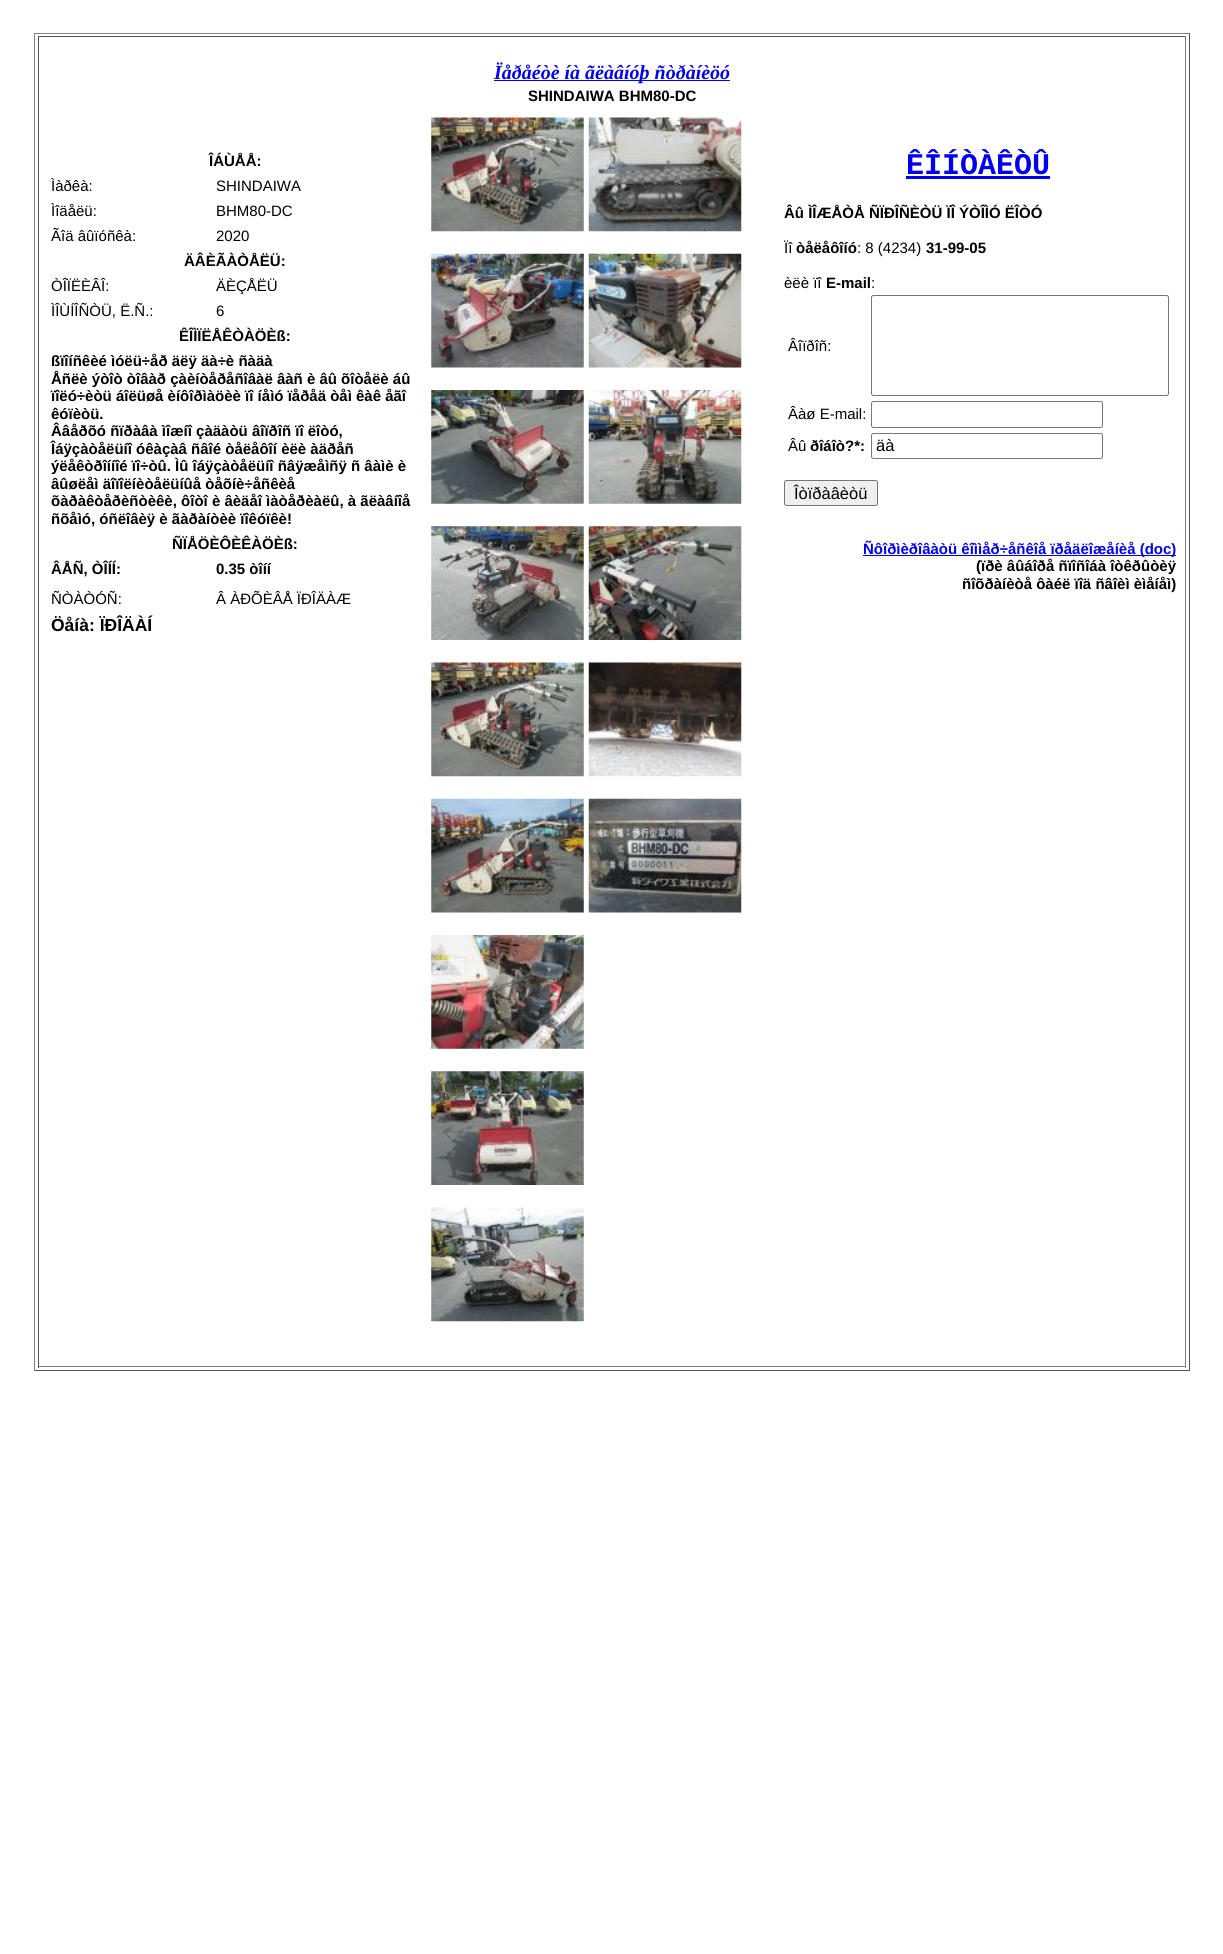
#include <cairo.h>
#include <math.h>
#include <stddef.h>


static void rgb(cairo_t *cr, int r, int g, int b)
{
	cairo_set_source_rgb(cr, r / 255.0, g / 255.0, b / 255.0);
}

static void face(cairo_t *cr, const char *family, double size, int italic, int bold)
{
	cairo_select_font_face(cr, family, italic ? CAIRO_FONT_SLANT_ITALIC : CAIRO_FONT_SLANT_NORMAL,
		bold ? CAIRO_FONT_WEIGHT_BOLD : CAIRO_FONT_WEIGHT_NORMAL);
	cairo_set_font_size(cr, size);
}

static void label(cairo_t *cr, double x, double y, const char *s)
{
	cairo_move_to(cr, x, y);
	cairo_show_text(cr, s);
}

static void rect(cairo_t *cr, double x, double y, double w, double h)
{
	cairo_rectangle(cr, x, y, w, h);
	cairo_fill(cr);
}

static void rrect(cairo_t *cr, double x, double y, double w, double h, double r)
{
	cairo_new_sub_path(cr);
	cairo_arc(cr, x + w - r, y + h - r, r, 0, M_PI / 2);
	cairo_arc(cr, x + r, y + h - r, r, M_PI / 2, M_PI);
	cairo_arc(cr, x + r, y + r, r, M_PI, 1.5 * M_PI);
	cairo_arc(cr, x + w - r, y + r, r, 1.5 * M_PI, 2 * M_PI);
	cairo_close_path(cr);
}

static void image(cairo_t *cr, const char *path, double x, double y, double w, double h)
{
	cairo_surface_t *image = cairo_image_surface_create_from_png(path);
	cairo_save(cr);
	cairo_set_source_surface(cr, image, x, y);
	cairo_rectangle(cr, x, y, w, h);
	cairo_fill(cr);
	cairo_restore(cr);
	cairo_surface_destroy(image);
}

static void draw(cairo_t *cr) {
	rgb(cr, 255, 255, 255);
	cairo_paint(cr);
	rgb(cr, 128, 128, 128);
	rect(cr, 34, 33, 1156, 1);
	rgb(cr, 85, 85, 85);
	rect(cr, 1189, 33, 1, 1338);
	rect(cr, 34, 1370, 1156, 1);
	rgb(cr, 128, 128, 128);
	rect(cr, 34, 33, 1, 1338);
	rgb(cr, 85, 85, 85);
	rect(cr, 38, 36, 1148, 1);
	rgb(cr, 128, 128, 128);
	rect(cr, 1185, 36, 1, 1332);
	rect(cr, 38, 1366, 1148, 1);
	rgb(cr, 85, 85, 85);
	rect(cr, 38, 36, 1, 1332);
	rgb(cr, 0, 0, 238);
	rect(cr, 494, 80, 236, 1);
	face(cr, "Liberation Serif", 20, 1, 1);
	label(cr, 494, 79, "Ïåðåéòè íà ãëàâíóþ ñòðàíèöó");
	face(cr, "Liberation Sans", 15, 0, 1);
	rgb(cr, 0, 0, 0);
	label(cr, 528, 101, "SHINDAIWA BHM80-DC");
	label(cr, 209, 166, "ÎÁÙÅÅ:");
	face(cr, "Liberation Sans", 15, 0, 0);
	label(cr, 51, 191, "Ìàðêà:");
	label(cr, 216, 191, "SHINDAIWA");
	label(cr, 51, 216, "Ìîäåëü:");
	label(cr, 216, 216, "BHM80-DC");
	label(cr, 51, 241, "Ãîä âûïóñêà:");
	label(cr, 216, 241, "2020");
	face(cr, "Liberation Sans", 15, 0, 1);
	label(cr, 184, 266, "ÄÂÈÃÀÒÅËÜ:");
	face(cr, "Liberation Sans", 15, 0, 0);
	label(cr, 51, 291, "ÒÎÏËÈÂÎ:");
	label(cr, 216, 291, "ÄÈÇÅËÜ");
	label(cr, 51, 316, "ÌÎÙÍÎÑÒÜ, Ë.Ñ.:");
	label(cr, 216, 316, "6");
	face(cr, "Liberation Sans", 15, 0, 1);
	label(cr, 179, 341, "ÊÎÌÏËÅÊÒÀÖÈß:");
	label(cr, 51, 366, "ßïîíñêèé ìóëü÷åð äëÿ äà÷è ñàäà");
	label(cr, 51, 384, "Åñëè ýòîò òîâàð çàèíòåðåñîâàë âàñ è âû õîòåëè áû");
	label(cr, 51, 401, "ïîëó÷èòü áîëüøå èíôîðìàöèè ïî íåìó ïåðåä òåì êàê åãî");
	label(cr, 51, 419, "êóïèòü.");
	label(cr, 51, 436, "Ââåðõó ñïðàâà ìîæíî çàäàòü âîïðîñ ïî ëîòó,");
	label(cr, 51, 454, "Îáÿçàòåëüíî óêàçàâ ñâîé òåëåôîí èëè àäðåñ");
	label(cr, 51, 471, "ýëåêòðîííîé ïî÷òû. Ìû îáÿçàòåëüíî ñâÿæåìñÿ ñ âàìè è");
	label(cr, 51, 489, "âûøëåì äîïîëíèòåëüíûå òåõíè÷åñêèå");
	label(cr, 51, 506, "õàðàêòåðèñòèêè, ôîòî è âèäåî ìàòåðèàëû, à ãëàâíîå");
	label(cr, 51, 524, "ñõåìó, óñëîâèÿ è ãàðàíòèè ïîêóïêè!");
	label(cr, 172, 549, "ÑÏÅÖÈÔÈÊÀÖÈß:");
	label(cr, 51, 574, "ÂÅÑ, ÒÎÍÍ:");
	label(cr, 216, 574, "0.35 òîíí");
	face(cr, "Liberation Sans", 15, 0, 0);
	label(cr, 51, 604, "ÑÒÀÒÓÑ:");
	label(cr, 216, 604, "Â ÀÐÕÈÂÅ ÏÐÎÄÀÆ");
	face(cr, "Liberation Sans", 17.5, 0, 1);
	label(cr, 51, 631, "Öåíà: ÏÐÎÄÀÍ");
	image(cr, "image0.png", 431, 117, 153, 115);
	image(cr, "image1.png", 431, 253, 153, 115);
	image(cr, "image2.png", 431, 390, 153, 114);
	image(cr, "image3.png", 431, 526, 153, 114);
	image(cr, "image0.png", 431, 662, 153, 115);
	image(cr, "image4.png", 431, 798, 153, 115);
	image(cr, "image5.png", 431, 935, 153, 114);
	image(cr, "image6.png", 431, 1071, 153, 114);
	image(cr, "image7.png", 431, 1207, 153, 115);
	image(cr, "image8.png", 588, 117, 154, 115);
	image(cr, "image9.png", 588, 253, 154, 115);
	image(cr, "image10.png", 588, 390, 154, 114);
	image(cr, "image11.png", 588, 526, 154, 114);
	image(cr, "image12.png", 588, 662, 154, 115);
	image(cr, "image13.png", 588, 798, 154, 115);
	face(cr, "Liberation Mono", 30, 0, 1);
	rgb(cr, 0, 0, 238);
	label(cr, 906, 174, "ÊÎÍÒÀÊÒÛ");
	rect(cr, 906, 176, 144, 3);
	face(cr, "Liberation Sans", 15, 0, 1);
	rgb(cr, 0, 0, 0);
	label(cr, 784, 218, "Âû ÌÎÆÅÒÅ ÑÏÐÎÑÈÒÜ ÏÎ ÝÒÎÌÓ ËÎÒÓ");
	face(cr, "Liberation Sans", 15, 0, 0);
	label(cr, 784, 253, "Ïî");
	face(cr, "Liberation Sans", 15, 0, 1);
	label(cr, 796, 253, "òåëåôîíó");
	face(cr, "Liberation Sans", 15, 0, 0);
	label(cr, 857, 253, ": 8 (4234)");
	face(cr, "Liberation Sans", 15, 0, 1);
	label(cr, 926, 253, "31-99-05");
	face(cr, "Liberation Sans", 15, 0, 0);
	label(cr, 784, 288, "èëè ïî");
	face(cr, "Liberation Sans", 15, 0, 1);
	label(cr, 826, 288, "E-mail");
	face(cr, "Liberation Sans", 15, 0, 0);
	label(cr, 871, 288, ":");
	label(cr, 788, 351, "Âîïðîñ:");
	rrect(cr, 871.5, 295.5, 297, 100, 2);
	rgb(cr, 118, 118, 118);
	cairo_set_line_width(cr, 1);
	cairo_stroke(cr);
	rgb(cr, 0, 0, 0);
	label(cr, 788, 419, "Âàø E-mail:");
	rrect(cr, 871.5, 401.5, 231, 26, 2);
	rgb(cr, 118, 118, 118);
	cairo_stroke(cr);
	rgb(cr, 0, 0, 0);
	label(cr, 788, 451, "Âû");
	face(cr, "Liberation Sans", 15, 0, 1);
	label(cr, 810, 451, "ðîáîò?*:");
	rrect(cr, 871.5, 433.5, 231, 25, 2);
	rgb(cr, 118, 118, 118);
	cairo_stroke(cr);
	face(cr, "Liberation Sans", 16.5, 0, 0);
	rgb(cr, 0, 0, 0);
	label(cr, 876, 451, "äà");
	rgb(cr, 239, 239, 239);
	rrect(cr, 784.5, 480.5, 93, 25, 2);
	cairo_fill_preserve(cr);
	rgb(cr, 118, 118, 118);
	cairo_stroke(cr);
	rgb(cr, 0, 0, 0);
	label(cr, 794, 499, "Îòïðàâèòü");
	rgb(cr, 0, 0, 238);
	rect(cr, 863, 555, 313, 1);
	face(cr, "Liberation Sans", 15, 0, 1);
	label(cr, 863, 554, "Ñôîðìèðîâàòü êîììåð÷åñêîå ïðåäëîæåíèå (doc)");
	rgb(cr, 0, 0, 0);
	label(cr, 976, 571, "(ïðè âûáîðå ñïîñîáà îòêðûòèÿ");
	label(cr, 962, 589, "ñîõðàíèòå ôàéë ïîä ñâîèì èìåíåì)");
}

int main(void) {
	cairo_surface_t *surface = cairo_image_surface_create(CAIRO_FORMAT_RGB24, 1223, 1954);
	cairo_t *cr = cairo_create(surface);
	cairo_font_options_t *options = cairo_font_options_create();
	cairo_font_options_set_hint_metrics(options, CAIRO_HINT_METRICS_OFF);
	cairo_font_options_set_hint_style(options, CAIRO_HINT_STYLE_NONE);
	cairo_set_font_options(cr, options);
	cairo_set_miter_limit(cr, 4);
	draw(cr);
	cairo_surface_write_to_png(surface, "render.png");
	cairo_font_options_destroy(options);
	cairo_destroy(cr);
	cairo_surface_destroy(surface);
	return 0;
}
